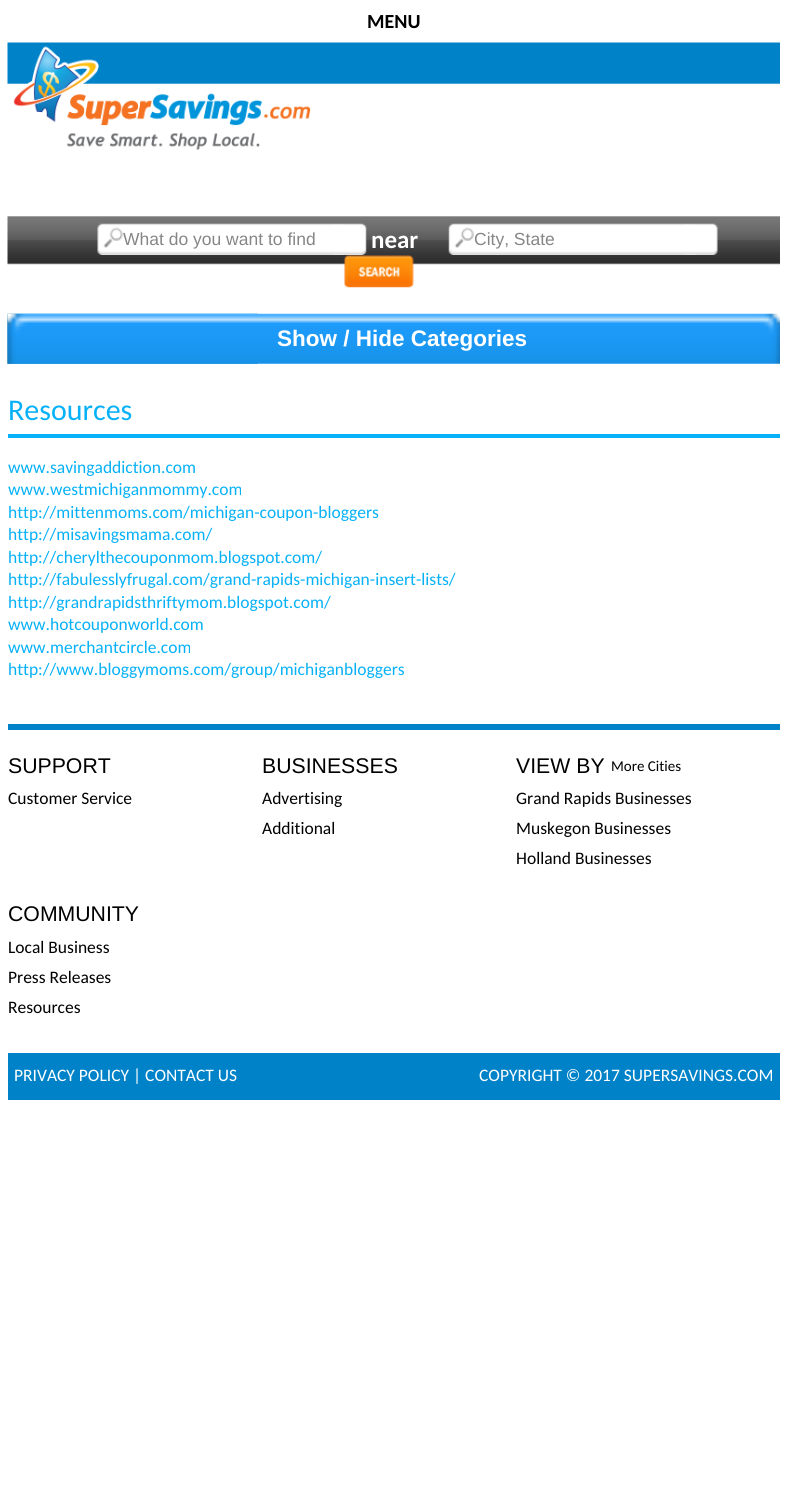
#include <cairo.h>
#include <math.h>
#include <stddef.h>


static void rgb(cairo_t *cr, int r, int g, int b)
{
	cairo_set_source_rgb(cr, r / 255.0, g / 255.0, b / 255.0);
}

static void face(cairo_t *cr, const char *family, double size, int italic, int bold)
{
	cairo_select_font_face(cr, family, italic ? CAIRO_FONT_SLANT_ITALIC : CAIRO_FONT_SLANT_NORMAL,
		bold ? CAIRO_FONT_WEIGHT_BOLD : CAIRO_FONT_WEIGHT_NORMAL);
	cairo_set_font_size(cr, size);
}

static void label(cairo_t *cr, double x, double y, const char *s)
{
	cairo_move_to(cr, x, y);
	cairo_show_text(cr, s);
}

static void rect(cairo_t *cr, double x, double y, double w, double h)
{
	cairo_rectangle(cr, x, y, w, h);
	cairo_fill(cr);
}

static void image(cairo_t *cr, const char *path, double x, double y, double w, double h)
{
	cairo_surface_t *image = cairo_image_surface_create_from_png(path);
	cairo_save(cr);
	cairo_set_source_surface(cr, image, x, y);
	cairo_rectangle(cr, x, y, w, h);
	cairo_fill(cr);
	cairo_restore(cr);
	cairo_surface_destroy(image);
}

static void draw(cairo_t *cr) {
	rgb(cr, 255, 255, 255);
	cairo_paint(cr);
	face(cr, "Carlito", 20, 0, 1);
	rgb(cr, 0, 0, 0);
	label(cr, 367, 28, "MENU");
	image(cr, "image0.png", 7, 42, 773, 223);
	image(cr, "image1.png", 13, 46, 298, 104);
	image(cr, "image2.png", 97, 223, 270, 32);
	face(cr, "Liberation Sans", 17.5, 0, 0);
	rgb(cr, 134, 134, 134);
	label(cr, 123, 245, "What do you want to find");
	face(cr, "Carlito", 25, 0, 1);
	rgb(cr, 255, 255, 255);
	label(cr, 371, 248, "near");
	image(cr, "image3.png", 448, 223, 270, 32);
	face(cr, "Liberation Sans", 17.5, 0, 0);
	rgb(cr, 134, 134, 134);
	label(cr, 474, 245, "City, State");
	image(cr, "image4.png", 343, 255, 71, 33);
	image(cr, "image5.png", 7, 313, 251, 51);
	image(cr, "image6.png", 7, 313, 773, 51);
	face(cr, "Liberation Sans", 22.5, 0, 1);
	rgb(cr, 255, 255, 255);
	label(cr, 277, 346, "Show / Hide Categories");
	rgb(cr, 6, 177, 247);
	rect(cr, 8, 434, 772, 4);
	face(cr, "Carlito", 30, 0, 0);
	label(cr, 8, 420, "Resources");
	face(cr, "Carlito", 17.5, 0, 0);
	label(cr, 8, 473, "www.savingaddiction.com");
	label(cr, 8, 495, "www.westmichiganmommy.com");
	label(cr, 8, 518, "http://mittenmoms.com/michigan-coupon-bloggers");
	label(cr, 8, 540, "http://misavingsmama.com/");
	label(cr, 8, 563, "http://cherylthecouponmom.blogspot.com/");
	label(cr, 8, 585, "http://fabulesslyfrugal.com/grand-rapids-michigan-insert-lists/");
	label(cr, 8, 608, "http://grandrapidsthriftymom.blogspot.com/");
	label(cr, 8, 630, "www.hotcouponworld.com");
	label(cr, 8, 653, "www.merchantcircle.com");
	label(cr, 8, 675, "http://www.bloggymoms.com/group/michiganbloggers");
	rgb(cr, 0, 130, 201);
	rect(cr, 8, 724, 772, 6);
	face(cr, "Liberation Sans", 21.25, 0, 0);
	rgb(cr, 0, 0, 0);
	label(cr, 8, 773, "SUPPORT");
	face(cr, "Carlito", 17.5, 0, 0);
	label(cr, 8, 804, "Customer Service");
	face(cr, "Liberation Sans", 21.25, 0, 0);
	label(cr, 262, 773, "BUSINESSES");
	face(cr, "Carlito", 17.5, 0, 0);
	label(cr, 262, 804, "Advertising");
	label(cr, 262, 834, "Additional");
	face(cr, "Liberation Sans", 21.25, 0, 0);
	label(cr, 516, 773, "VIEW BY");
	face(cr, "Carlito", 15, 0, 0);
	label(cr, 611, 771, "More Cities");
	face(cr, "Carlito", 17.5, 0, 0);
	label(cr, 516, 804, "Grand Rapids Businesses");
	label(cr, 516, 834, "Muskegon Businesses");
	label(cr, 516, 864, "Holland Businesses");
	face(cr, "Liberation Sans", 21.25, 0, 0);
	label(cr, 8, 921, "COMMUNITY");
	face(cr, "Carlito", 17.5, 0, 0);
	label(cr, 8, 953, "Local Business");
	label(cr, 8, 983, "Press Releases");
	label(cr, 8, 1013, "Resources");
	rgb(cr, 0, 130, 201);
	rect(cr, 8, 1053, 772, 47);
	rgb(cr, 255, 255, 255);
	label(cr, 14, 1081, "PRIVACY POLICY | CONTACT US");
	label(cr, 479, 1081, "COPYRIGHT © 2017 SUPERSAVINGS.COM");
}

int main(void) {
	cairo_surface_t *surface = cairo_image_surface_create(CAIRO_FORMAT_RGB24, 787, 1491);
	cairo_t *cr = cairo_create(surface);
	cairo_font_options_t *options = cairo_font_options_create();
	cairo_font_options_set_hint_metrics(options, CAIRO_HINT_METRICS_OFF);
	cairo_font_options_set_hint_style(options, CAIRO_HINT_STYLE_NONE);
	cairo_set_font_options(cr, options);
	cairo_set_miter_limit(cr, 4);
	draw(cr);
	cairo_surface_write_to_png(surface, "render.png");
	cairo_font_options_destroy(options);
	cairo_destroy(cr);
	cairo_surface_destroy(surface);
	return 0;
}
